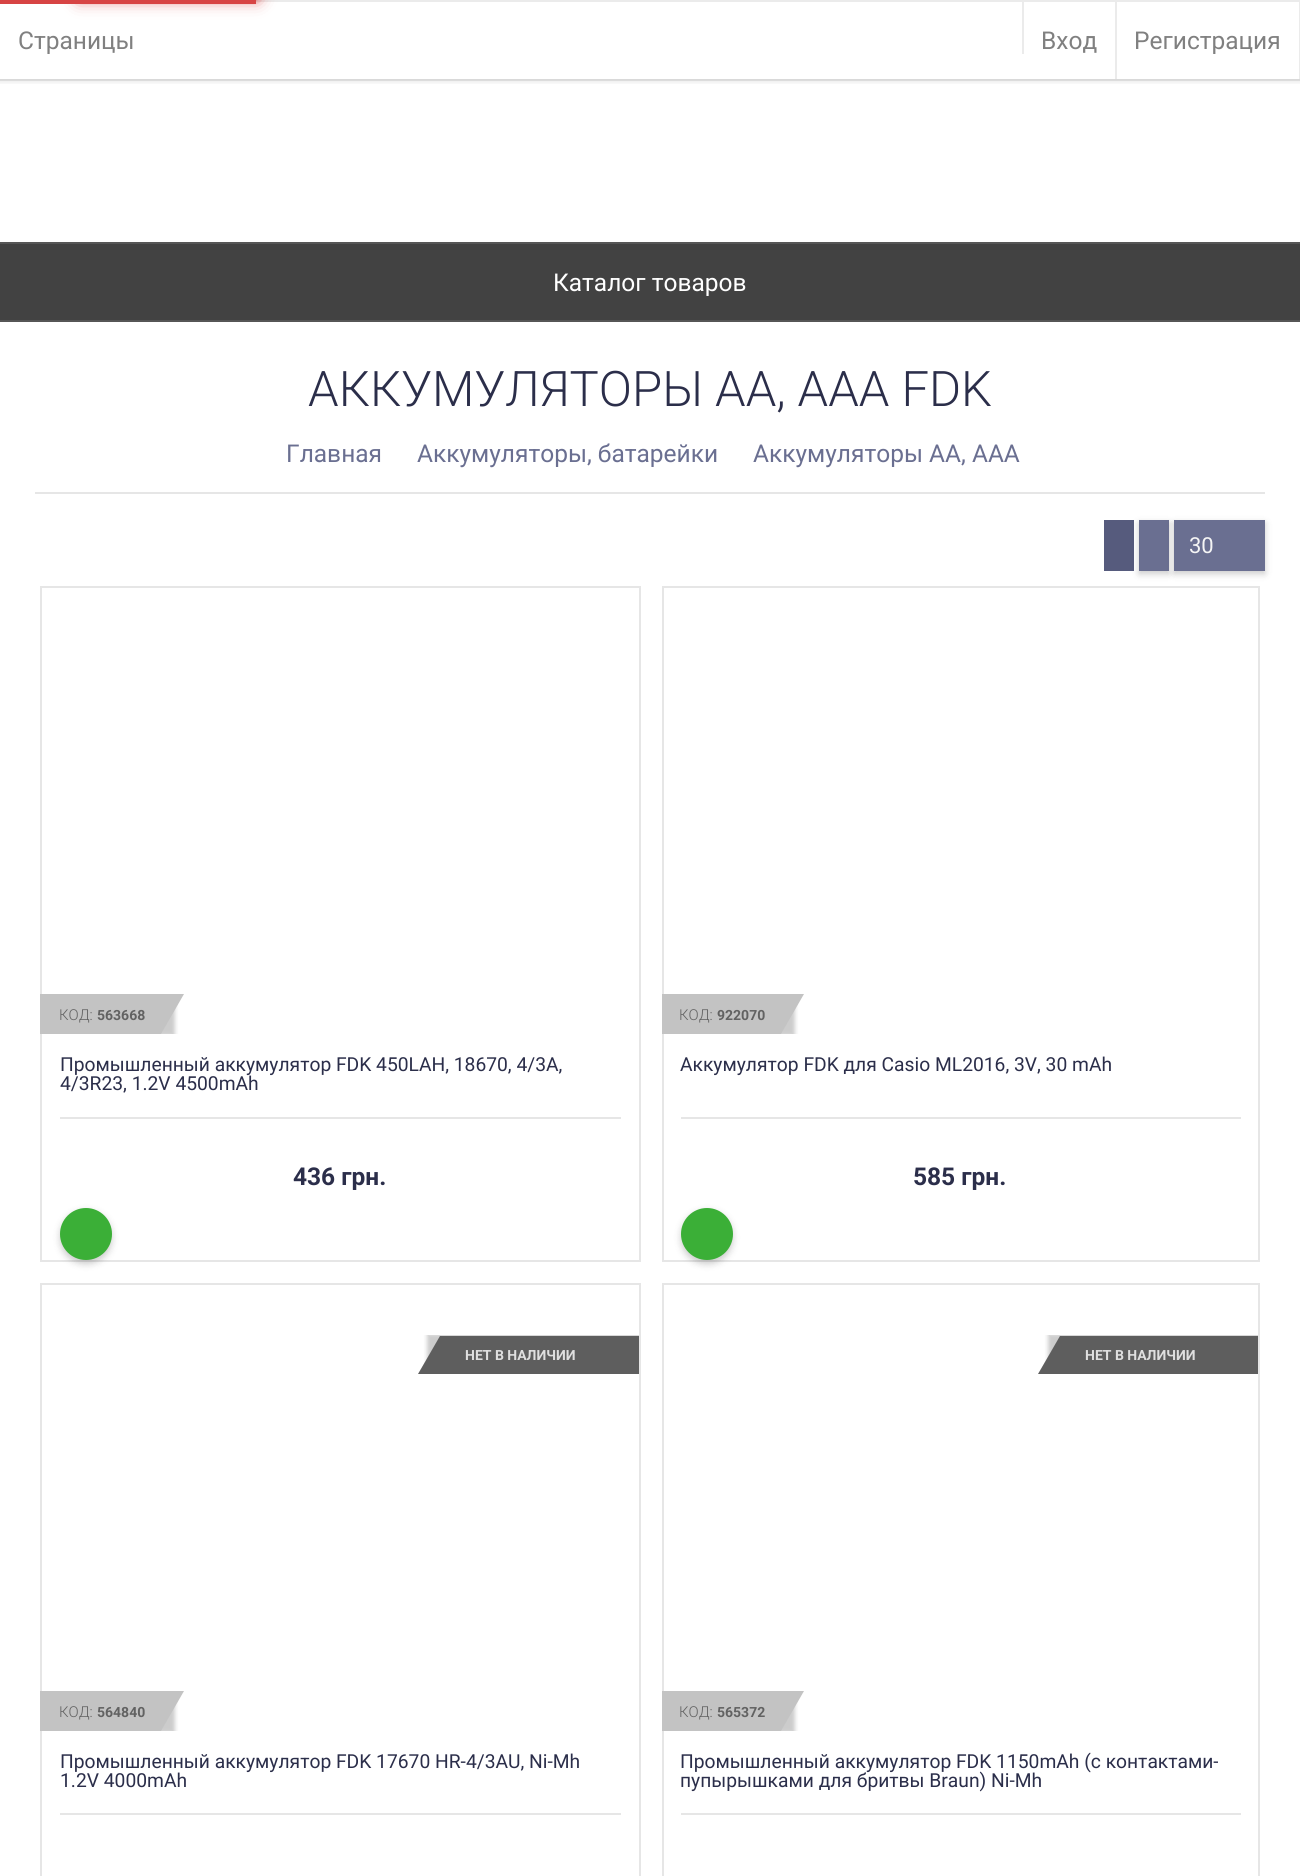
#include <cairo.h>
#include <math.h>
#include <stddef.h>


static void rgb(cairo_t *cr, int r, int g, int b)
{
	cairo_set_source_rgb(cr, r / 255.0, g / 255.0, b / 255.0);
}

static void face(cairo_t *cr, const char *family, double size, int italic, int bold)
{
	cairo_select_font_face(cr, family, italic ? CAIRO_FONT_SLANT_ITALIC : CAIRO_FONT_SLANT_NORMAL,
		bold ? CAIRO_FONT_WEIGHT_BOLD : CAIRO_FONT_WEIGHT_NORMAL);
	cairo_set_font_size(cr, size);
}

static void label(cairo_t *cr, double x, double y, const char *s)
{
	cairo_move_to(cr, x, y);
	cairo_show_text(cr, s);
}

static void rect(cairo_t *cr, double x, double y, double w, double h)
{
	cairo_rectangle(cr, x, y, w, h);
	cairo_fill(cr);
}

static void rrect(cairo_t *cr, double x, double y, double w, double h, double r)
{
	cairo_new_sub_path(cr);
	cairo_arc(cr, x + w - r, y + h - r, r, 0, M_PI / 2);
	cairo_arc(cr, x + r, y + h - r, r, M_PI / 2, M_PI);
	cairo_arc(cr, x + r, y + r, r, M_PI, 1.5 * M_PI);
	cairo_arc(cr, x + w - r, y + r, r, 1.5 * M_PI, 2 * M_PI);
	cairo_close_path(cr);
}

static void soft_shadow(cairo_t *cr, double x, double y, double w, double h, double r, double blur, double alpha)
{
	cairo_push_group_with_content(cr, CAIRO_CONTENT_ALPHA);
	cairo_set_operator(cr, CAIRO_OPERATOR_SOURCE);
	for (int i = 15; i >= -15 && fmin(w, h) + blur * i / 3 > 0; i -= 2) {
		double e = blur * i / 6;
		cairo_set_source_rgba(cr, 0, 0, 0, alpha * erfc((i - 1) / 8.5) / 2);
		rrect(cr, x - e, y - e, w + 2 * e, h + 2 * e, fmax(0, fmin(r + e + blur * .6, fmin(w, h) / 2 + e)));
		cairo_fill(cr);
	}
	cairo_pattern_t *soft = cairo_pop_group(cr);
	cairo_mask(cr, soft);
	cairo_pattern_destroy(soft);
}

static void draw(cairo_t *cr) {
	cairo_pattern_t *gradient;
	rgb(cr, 255, 255, 255);
	cairo_paint(cr);
	rgb(cr, 215, 68, 68);
	rect(cr, 0, 0, 256, 4);
	rgb(cr, 235, 235, 235);
	rect(cr, 256, 0, 1044, 2);
	rgb(cr, 215, 68, 68);
	soft_shadow(cr, 81, -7, 175, 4, 0, 4.5, 1);
	soft_shadow(cr, 81, -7, 175, 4, 0, 9, 1);
	rgb(cr, 235, 235, 235);
	rect(cr, 0, 79, 1300, 2);
	face(cr, "Roboto", 24.5, 0, 0);
	rgb(cr, 128, 128, 128);
	label(cr, 18, 49, "Страницы");
	rgb(cr, 235, 235, 235);
	rect(cr, 1022, 2, 2, 52);
	rect(cr, 1115, 2, 2, 77);
	rgb(cr, 128, 128, 128);
	label(cr, 1041, 49, "Вход");
	rgb(cr, 235, 235, 235);
	rect(cr, 1299, 2, 1, 77);
	rgb(cr, 128, 128, 128);
	label(cr, 1134, 49, "Регистрация");
	gradient = cairo_pattern_create_linear(650, 79, 650, 86);
	cairo_pattern_add_color_stop_rgba(gradient, 0, 0, 0, 0, 0.08);
	cairo_pattern_add_color_stop_rgba(gradient, 1, 0, 0, 0, 0);
	cairo_set_source(cr, gradient);
	cairo_pattern_destroy(gradient);
	rect(cr, 0, 79, 1300, 5);
	rgb(cr, 66, 66, 66);
	rect(cr, 0, 244, 1300, 76);
	rgb(cr, 86, 86, 86);
	rect(cr, 0, 242, 1300, 2);
	rect(cr, 0, 320, 1300, 2);
	rgb(cr, 255, 255, 255);
	label(cr, 553, 291, "Каталог товаров");
	face(cr, "Roboto Light", 49, 0, 0);
	rgb(cr, 43, 46, 74);
	label(cr, 308, 406, "АККУМУЛЯТОРЫ АА, ААА FDK");
	rgb(cr, 230, 230, 230);
	rect(cr, 35, 492, 1230, 2);
	face(cr, "Roboto", 24.5, 0, 0);
	rgb(cr, 106, 111, 145);
	label(cr, 286, 462, "Главная");
	label(cr, 417, 462, "Аккумуляторы, батарейки");
	label(cr, 753, 462, "Аккумуляторы АА, ААА");
	rgb(cr, 86, 91, 125);
	rect(cr, 1104, 520, 30, 51);
	rgb(cr, 0, 0, 0);
	soft_shadow(cr, 1139, 523, 30, 51, 0, 3.5, 0.2);
	rgb(cr, 106, 111, 145);
	rect(cr, 1139, 520, 30, 51);
	rgb(cr, 0, 0, 0);
	soft_shadow(cr, 1174, 523, 91, 51, 0, 3.5, 0.2);
	rgb(cr, 106, 111, 145);
	rect(cr, 1174, 520, 91, 51);
	face(cr, "Roboto", 22, 0, 0);
	rgb(cr, 245, 245, 245);
	label(cr, 1189, 553, "30");
	cairo_rectangle(cr, 41, 587, 599, 674);
	rgb(cr, 230, 230, 230);
	cairo_stroke(cr);
	cairo_save(cr);
	cairo_rectangle(cr, 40, 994, 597, 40);
	cairo_clip(cr);
	rgb(cr, 0, 0, 0);
	soft_shadow(cr, 25, 996, 150, 40, 0, 2, 0.2);
	cairo_restore(cr);
	cairo_save(cr);
	cairo_rectangle(cr, 40, 994, 597, 40);
	cairo_clip(cr);
	rgb(cr, 195, 195, 195);
	cairo_new_path(cr);
	cairo_move_to(cr, 35, 994);
	cairo_line_to(cr, 184, 994);
	cairo_line_to(cr, 161, 1034);
	cairo_line_to(cr, 12, 1034);
	cairo_close_path(cr);
	cairo_fill(cr);
	cairo_restore(cr);
	face(cr, "Roboto Light", 15, 0, 0);
	rgb(cr, 98, 98, 98);
	label(cr, 59, 1020, "КОД:");
	face(cr, "Roboto", 14, 0, 1);
	label(cr, 97, 1020, "563668");
	rgb(cr, 230, 230, 230);
	rect(cr, 60, 1117, 561, 2);
	face(cr, "Roboto", 19.25, 0, 0);
	rgb(cr, 43, 46, 74);
	label(cr, 60, 1071, "Промышленный аккумулятор FDK 450LAH, 18670, 4/3A,");
	label(cr, 60, 1090, "4/3R23, 1.2V 4500mAh");
	face(cr, "Roboto", 24.5, 0, 1);
	label(cr, 293, 1185, "436 грн.");
	rgb(cr, 0, 0, 0);
	soft_shadow(cr, 60, 1211, 52, 53, 26, 3.5, 0.2);
	rgb(cr, 59, 175, 55);
	cairo_arc(cr, 86, 1234, 26, 0, 2 * M_PI);
	cairo_fill(cr);
	cairo_rectangle(cr, 663, 587, 596, 674);
	rgb(cr, 230, 230, 230);
	cairo_stroke(cr);
	cairo_save(cr);
	cairo_rectangle(cr, 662, 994, 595, 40);
	cairo_clip(cr);
	rgb(cr, 0, 0, 0);
	soft_shadow(cr, 646, 996, 149, 40, 0, 2, 0.2);
	cairo_restore(cr);
	cairo_save(cr);
	cairo_rectangle(cr, 662, 994, 595, 40);
	cairo_clip(cr);
	rgb(cr, 195, 195, 195);
	cairo_new_path(cr);
	cairo_move_to(cr, 655, 994);
	cairo_line_to(cr, 804, 994);
	cairo_line_to(cr, 781, 1034);
	cairo_line_to(cr, 632, 1034);
	cairo_close_path(cr);
	cairo_fill(cr);
	cairo_restore(cr);
	face(cr, "Roboto Light", 15, 0, 0);
	rgb(cr, 98, 98, 98);
	label(cr, 679, 1020, "КОД:");
	face(cr, "Roboto", 14, 0, 1);
	label(cr, 717, 1020, "922070");
	rgb(cr, 230, 230, 230);
	rect(cr, 681, 1117, 560, 2);
	face(cr, "Roboto", 19.25, 0, 0);
	rgb(cr, 43, 46, 74);
	label(cr, 680, 1071, "Аккумулятор FDK для Casio ML2016, 3V, 30 mAh");
	face(cr, "Roboto", 24.5, 0, 1);
	label(cr, 913, 1185, "585 грн.");
	rgb(cr, 0, 0, 0);
	soft_shadow(cr, 681, 1211, 52, 53, 26, 3.5, 0.2);
	rgb(cr, 59, 175, 55);
	cairo_arc(cr, 707, 1234, 26, 0, 2 * M_PI);
	cairo_fill(cr);
	cairo_rectangle(cr, 41, 1284, 599, 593);
	rgb(cr, 230, 230, 230);
	cairo_stroke(cr);
	cairo_save(cr);
	cairo_rectangle(cr, 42, 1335, 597, 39);
	cairo_clip(cr);
	cairo_set_fill_rule(cr, CAIRO_FILL_RULE_EVEN_ODD);
	cairo_new_path(cr);
	cairo_move_to(cr, 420, 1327);
	cairo_line_to(cr, 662, 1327);
	cairo_line_to(cr, 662, 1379);
	cairo_line_to(cr, 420, 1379);
	cairo_close_path(cr);
	cairo_move_to(cr, 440.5, 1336);
	cairo_line_to(cr, 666.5, 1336);
	cairo_line_to(cr, 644.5, 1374.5);
	cairo_line_to(cr, 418, 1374.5);
	cairo_close_path(cr);
	cairo_clip(cr);
	rgb(cr, 0, 0, 0);
	soft_shadow(cr, 427, 1334, 228, 38, 0, 2, 0.2);
	cairo_restore(cr);
	cairo_save(cr);
	cairo_rectangle(cr, 42, 1335, 597, 39);
	cairo_clip(cr);
	cairo_set_source_rgba(cr, 0.259, 0.259, 0.259, 0.85);
	cairo_new_path(cr);
	cairo_move_to(cr, 440, 1336);
	cairo_line_to(cr, 666, 1336);
	cairo_line_to(cr, 644, 1374);
	cairo_line_to(cr, 418, 1374);
	cairo_close_path(cr);
	cairo_fill(cr);
	cairo_restore(cr);
	face(cr, "Roboto", 14, 0, 1);
	rgb(cr, 223, 223, 223);
	label(cr, 465, 1360, "НЕТ В НАЛИЧИИ");
	cairo_save(cr);
	cairo_rectangle(cr, 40, 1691, 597, 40);
	cairo_clip(cr);
	rgb(cr, 0, 0, 0);
	soft_shadow(cr, 25, 1692, 150, 41, 0, 2, 0.2);
	cairo_restore(cr);
	cairo_save(cr);
	cairo_rectangle(cr, 40, 1691, 597, 40);
	cairo_clip(cr);
	rgb(cr, 195, 195, 195);
	cairo_new_path(cr);
	cairo_move_to(cr, 35, 1691);
	cairo_line_to(cr, 184, 1691);
	cairo_line_to(cr, 161, 1731);
	cairo_line_to(cr, 12, 1731);
	cairo_close_path(cr);
	cairo_fill(cr);
	cairo_restore(cr);
	face(cr, "Roboto Light", 15, 0, 0);
	rgb(cr, 98, 98, 98);
	label(cr, 59, 1717, "КОД:");
	face(cr, "Roboto", 14, 0, 1);
	label(cr, 97, 1717, "564840");
	rgb(cr, 230, 230, 230);
	rect(cr, 60, 1813, 561, 2);
	face(cr, "Roboto", 19.25, 0, 0);
	rgb(cr, 43, 46, 74);
	label(cr, 60, 1768, "Промышленный аккумулятор FDK 17670 HR-4/3AU, Ni-Mh");
	label(cr, 60, 1787, "1.2V 4000mAh");
	cairo_rectangle(cr, 663, 1284, 596, 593);
	rgb(cr, 230, 230, 230);
	cairo_stroke(cr);
	cairo_save(cr);
	cairo_rectangle(cr, 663, 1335, 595, 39);
	cairo_clip(cr);
	cairo_set_fill_rule(cr, CAIRO_FILL_RULE_EVEN_ODD);
	cairo_new_path(cr);
	cairo_move_to(cr, 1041, 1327);
	cairo_line_to(cr, 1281, 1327);
	cairo_line_to(cr, 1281, 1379);
	cairo_line_to(cr, 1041, 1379);
	cairo_close_path(cr);
	cairo_move_to(cr, 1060.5, 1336);
	cairo_line_to(cr, 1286.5, 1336);
	cairo_line_to(cr, 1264, 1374.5);
	cairo_line_to(cr, 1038, 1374.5);
	cairo_close_path(cr);
	cairo_clip(cr);
	rgb(cr, 0, 0, 0);
	soft_shadow(cr, 1048, 1334, 226, 38, 0, 2, 0.2);
	cairo_restore(cr);
	cairo_save(cr);
	cairo_rectangle(cr, 663, 1335, 595, 39);
	cairo_clip(cr);
	cairo_set_source_rgba(cr, 0.259, 0.259, 0.259, 0.85);
	cairo_new_path(cr);
	cairo_move_to(cr, 1060, 1336);
	cairo_line_to(cr, 1286, 1336);
	cairo_line_to(cr, 1264, 1374);
	cairo_line_to(cr, 1038, 1374);
	cairo_close_path(cr);
	cairo_fill(cr);
	cairo_restore(cr);
	face(cr, "Roboto", 14, 0, 1);
	rgb(cr, 223, 223, 223);
	label(cr, 1085, 1360, "НЕТ В НАЛИЧИИ");
	cairo_save(cr);
	cairo_rectangle(cr, 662, 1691, 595, 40);
	cairo_clip(cr);
	rgb(cr, 0, 0, 0);
	soft_shadow(cr, 646, 1692, 149, 41, 0, 2, 0.2);
	cairo_restore(cr);
	cairo_save(cr);
	cairo_rectangle(cr, 662, 1691, 595, 40);
	cairo_clip(cr);
	rgb(cr, 195, 195, 195);
	cairo_new_path(cr);
	cairo_move_to(cr, 655, 1691);
	cairo_line_to(cr, 804, 1691);
	cairo_line_to(cr, 781, 1731);
	cairo_line_to(cr, 632, 1731);
	cairo_close_path(cr);
	cairo_fill(cr);
	cairo_restore(cr);
	face(cr, "Roboto Light", 15, 0, 0);
	rgb(cr, 98, 98, 98);
	label(cr, 679, 1717, "КОД:");
	face(cr, "Roboto", 14, 0, 1);
	label(cr, 717, 1717, "565372");
	rgb(cr, 230, 230, 230);
	rect(cr, 681, 1813, 560, 2);
	face(cr, "Roboto", 19.25, 0, 0);
	rgb(cr, 43, 46, 74);
	label(cr, 680, 1768, "Промышленный аккумулятор FDK 1150mAh (с контактами-");
	label(cr, 680, 1787, "пупырышками для бритвы Braun) Ni-Mh");
}

int main(void) {
	cairo_surface_t *surface = cairo_image_surface_create(CAIRO_FORMAT_RGB24, 1300, 1876);
	cairo_t *cr = cairo_create(surface);
	cairo_font_options_t *options = cairo_font_options_create();
	cairo_font_options_set_hint_metrics(options, CAIRO_HINT_METRICS_OFF);
	cairo_font_options_set_hint_style(options, CAIRO_HINT_STYLE_NONE);
	cairo_set_font_options(cr, options);
	cairo_set_miter_limit(cr, 4);
	draw(cr);
	cairo_surface_write_to_png(surface, "render.png");
	cairo_font_options_destroy(options);
	cairo_destroy(cr);
	cairo_surface_destroy(surface);
	return 0;
}
